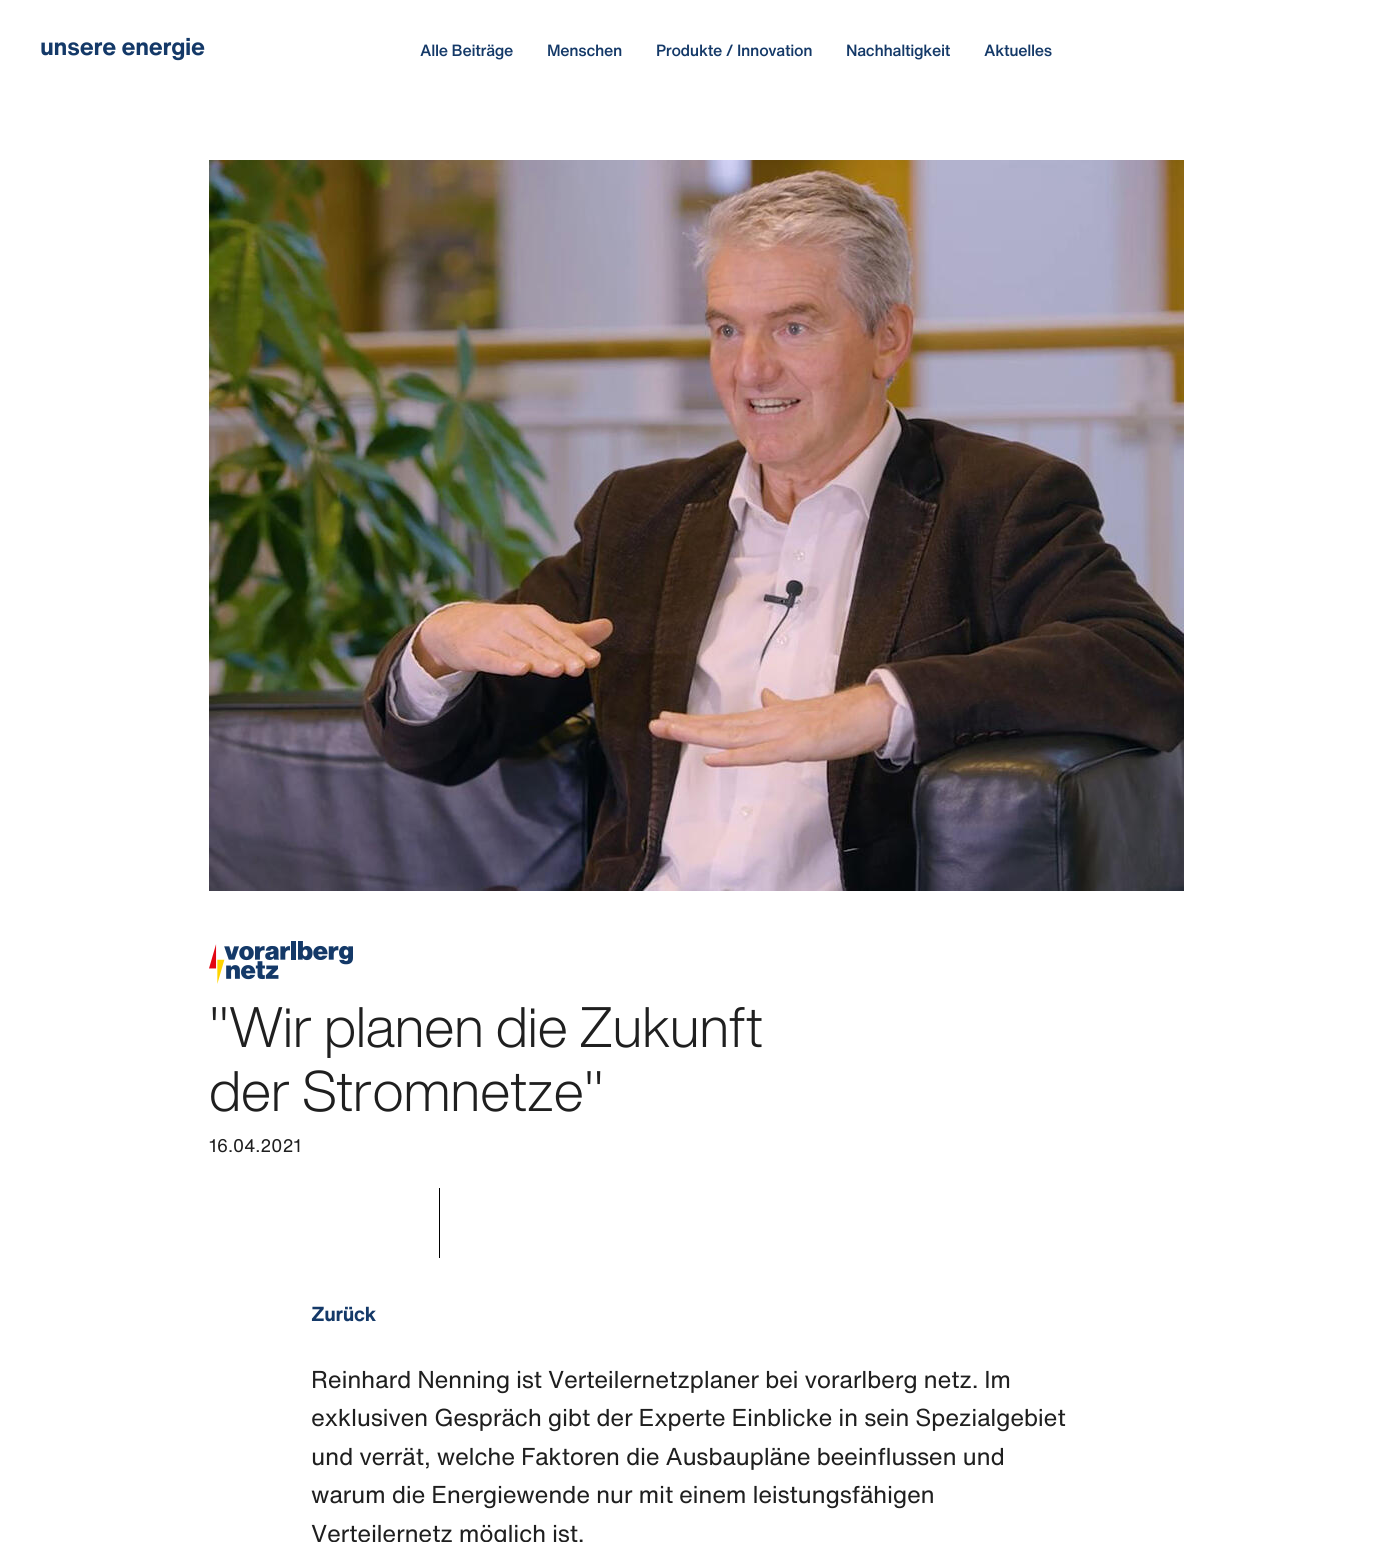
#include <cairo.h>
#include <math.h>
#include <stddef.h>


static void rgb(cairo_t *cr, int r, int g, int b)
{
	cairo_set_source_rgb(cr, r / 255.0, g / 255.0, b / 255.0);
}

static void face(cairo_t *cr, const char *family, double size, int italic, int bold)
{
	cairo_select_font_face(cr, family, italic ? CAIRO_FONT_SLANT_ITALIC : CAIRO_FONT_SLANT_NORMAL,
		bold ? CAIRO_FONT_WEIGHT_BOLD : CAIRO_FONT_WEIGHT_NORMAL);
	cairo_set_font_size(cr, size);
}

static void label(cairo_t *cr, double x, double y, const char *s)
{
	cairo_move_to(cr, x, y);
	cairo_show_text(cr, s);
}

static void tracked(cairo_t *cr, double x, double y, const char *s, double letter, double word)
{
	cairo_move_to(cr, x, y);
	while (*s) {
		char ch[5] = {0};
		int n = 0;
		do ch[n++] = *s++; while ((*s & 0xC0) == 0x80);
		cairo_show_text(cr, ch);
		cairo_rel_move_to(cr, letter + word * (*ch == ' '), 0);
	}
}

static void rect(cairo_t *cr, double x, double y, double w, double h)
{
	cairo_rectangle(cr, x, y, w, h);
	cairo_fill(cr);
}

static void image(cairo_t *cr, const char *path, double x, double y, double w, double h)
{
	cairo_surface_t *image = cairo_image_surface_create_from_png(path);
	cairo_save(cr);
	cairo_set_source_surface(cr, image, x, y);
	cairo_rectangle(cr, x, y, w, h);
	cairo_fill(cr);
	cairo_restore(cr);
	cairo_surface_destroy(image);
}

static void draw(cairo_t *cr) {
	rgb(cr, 255, 255, 255);
	cairo_paint(cr);
	face(cr, "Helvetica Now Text", 24, 0, 1);
	rgb(cr, 20, 57, 104);
	tracked(cr, 40, 55, "unsere energie", -0.32, 0);
	face(cr, "Helvetica Now Text Medium", 16, 0, 0);
	tracked(cr, 420, 56, "Alle Beiträge", -0.32, 0);
	tracked(cr, 547, 56, "Menschen", -0.32, 0);
	tracked(cr, 656, 56, "Produkte / Innovation", -0.32, 0);
	tracked(cr, 846, 56, "Nachhaltigkeit", -0.32, 0);
	tracked(cr, 984, 56, "Aktuelles", -0.32, 0);
	image(cr, "image0.png", 209, 160, 975, 731);
	image(cr, "image1.png", 209, 941, 144, 43);
	face(cr, "Helvetica Now Text Light", 56, 0, 0);
	rgb(cr, 31, 31, 31);
	label(cr, 209, 1047, "\"Wir planen die Zukunft");
	label(cr, 209, 1111, "der Stromnetze\"");
	face(cr, "Helvetica Now Text", 18, 0, 0);
	tracked(cr, 209, 1152, "16.04.2021", -0.32, 0);
	rgb(cr, 0, 0, 0);
	rect(cr, 439, 1188, 1, 70);
	face(cr, "Helvetica Now Text", 20, 0, 1);
	rgb(cr, 20, 57, 104);
	tracked(cr, 311, 1321, "Zurück", -0.32, 0);
	face(cr, "Helvetica Now Text", 24, 0, 0);
	rgb(cr, 31, 31, 31);
	tracked(cr, 311, 1388, "Reinhard Nenning ist Verteilernetzplaner bei vorarlberg netz. Im", -0.32, 0);
	tracked(cr, 311, 1426, "exklusiven Gespräch gibt der Experte Einblicke in sein Spezialgebiet", -0.32, 0);
	tracked(cr, 311, 1465, "und verrät, welche Faktoren die Ausbaupläne beeinflussen und", -0.32, 0);
	tracked(cr, 311, 1503, "warum die Energiewende nur mit einem leistungsfähigen", -0.32, 0);
	tracked(cr, 311, 1542, "Verteilernetz möglich ist.", -0.32, 0);
}

int main(void) {
	cairo_surface_t *surface = cairo_image_surface_create(CAIRO_FORMAT_RGB24, 1392, 1542);
	cairo_t *cr = cairo_create(surface);
	cairo_font_options_t *options = cairo_font_options_create();
	cairo_font_options_set_hint_metrics(options, CAIRO_HINT_METRICS_OFF);
	cairo_font_options_set_hint_style(options, CAIRO_HINT_STYLE_NONE);
	cairo_set_font_options(cr, options);
	cairo_set_miter_limit(cr, 4);
	draw(cr);
	cairo_surface_write_to_png(surface, "render.png");
	cairo_font_options_destroy(options);
	cairo_destroy(cr);
	cairo_surface_destroy(surface);
	return 0;
}
